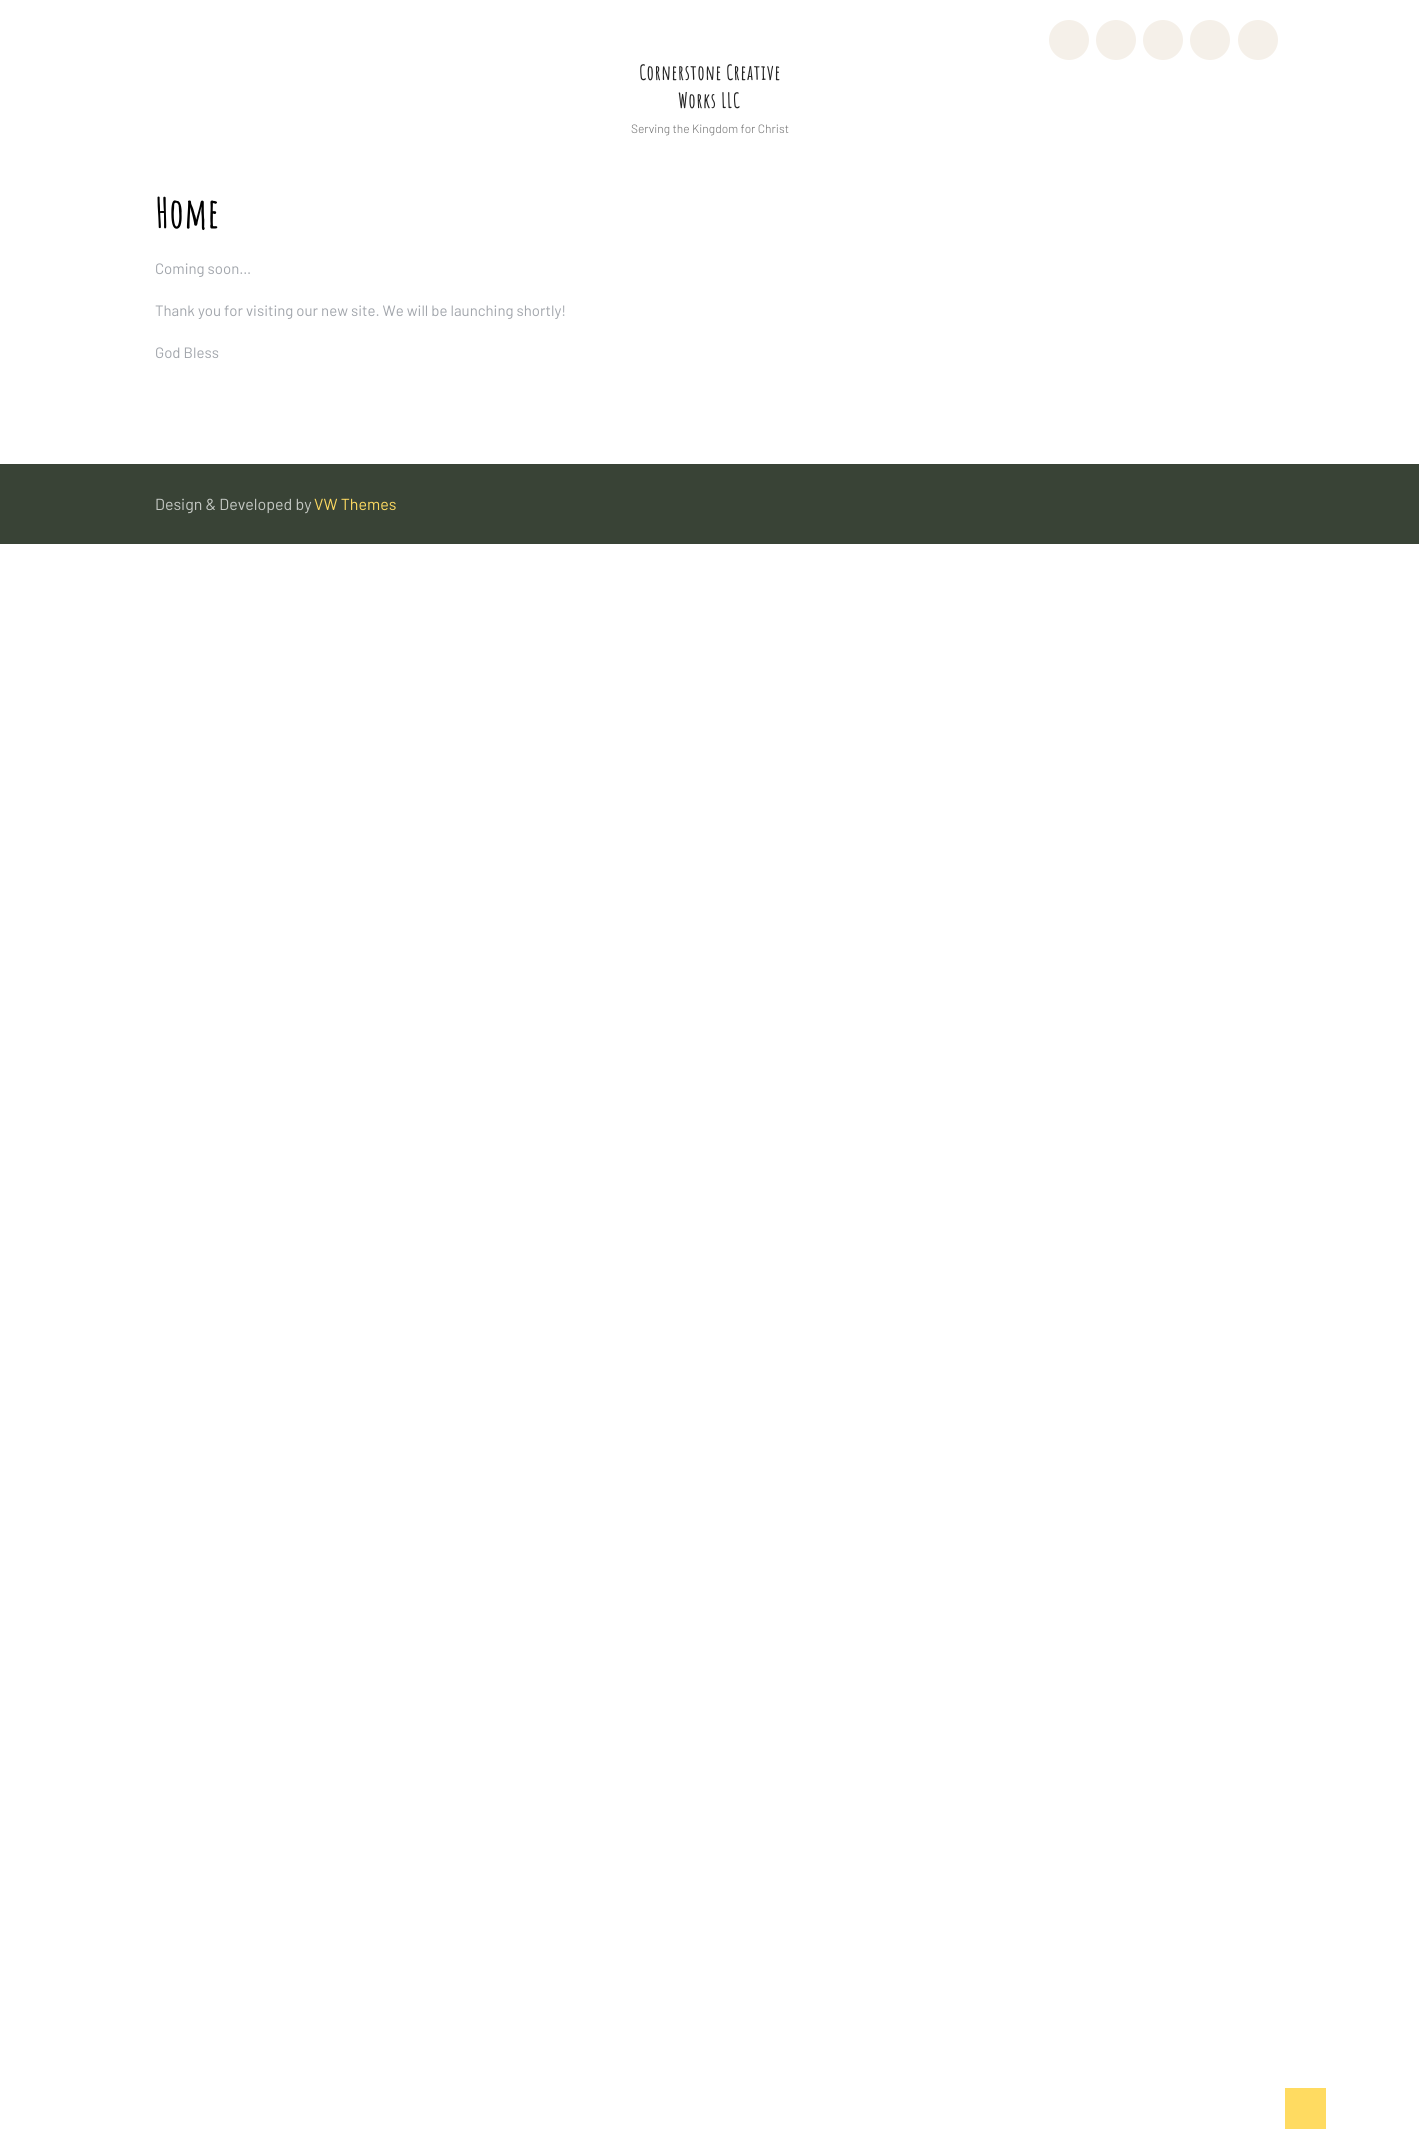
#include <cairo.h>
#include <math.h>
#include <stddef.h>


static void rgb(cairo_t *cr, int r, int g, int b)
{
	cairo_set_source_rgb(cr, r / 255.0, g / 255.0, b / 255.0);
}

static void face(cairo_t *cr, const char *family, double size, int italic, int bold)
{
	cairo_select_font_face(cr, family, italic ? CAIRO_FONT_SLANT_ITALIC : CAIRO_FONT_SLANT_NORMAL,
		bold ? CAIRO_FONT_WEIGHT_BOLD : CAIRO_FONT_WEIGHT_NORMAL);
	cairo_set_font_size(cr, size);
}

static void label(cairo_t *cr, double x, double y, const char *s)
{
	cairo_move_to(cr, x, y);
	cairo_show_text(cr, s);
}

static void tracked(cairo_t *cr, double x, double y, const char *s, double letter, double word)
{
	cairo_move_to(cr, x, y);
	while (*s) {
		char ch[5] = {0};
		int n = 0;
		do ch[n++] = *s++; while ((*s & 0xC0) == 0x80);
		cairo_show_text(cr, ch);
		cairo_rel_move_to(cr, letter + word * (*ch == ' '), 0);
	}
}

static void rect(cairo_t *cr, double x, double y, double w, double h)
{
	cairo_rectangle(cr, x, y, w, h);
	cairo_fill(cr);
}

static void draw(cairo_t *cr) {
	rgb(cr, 255, 255, 255);
	cairo_paint(cr);
	rgb(cr, 245, 240, 233);
	cairo_arc(cr, 1069, 40, 20, 0, 2 * M_PI);
	cairo_fill(cr);
	cairo_arc(cr, 1116, 40, 20, 0, 2 * M_PI);
	cairo_fill(cr);
	cairo_arc(cr, 1163, 40, 20, 0, 2 * M_PI);
	cairo_fill(cr);
	cairo_arc(cr, 1210, 40, 20, 0, 2 * M_PI);
	cairo_fill(cr);
	cairo_arc(cr, 1258, 40, 20, 0, 2 * M_PI);
	cairo_fill(cr);
	face(cr, "Amatic SC", 20, 0, 1);
	rgb(cr, 34, 34, 34);
	tracked(cr, 639, 80, "Cornerstone Creative", 1, 0);
	tracked(cr, 678, 108, "Works LLC", 1, 0);
	face(cr, "Barlow Light", 12, 0, 0);
	rgb(cr, 108, 108, 108);
	label(cr, 631, 133, "Serving the Kingdom for Christ");
	face(cr, "Amatic SC", 40, 0, 1);
	rgb(cr, 0, 0, 0);
	tracked(cr, 155, 228, "Home", 1, 0);
	face(cr, "Barlow", 15, 0, 0);
	rgb(cr, 161, 165, 171);
	label(cr, 155, 274, "Coming soon…");
	label(cr, 155, 316, "Thank you for visiting our new site. We will be launching shortly!");
	label(cr, 155, 358, "God Bless");
	rgb(cr, 57, 67, 54);
	rect(cr, 0, 464, 1419, 80);
	face(cr, "Barlow", 16, 0, 0);
	rgb(cr, 197, 201, 196);
	label(cr, 155, 510, "Design & Developed by");
	rgb(cr, 255, 219, 97);
	label(cr, 314, 510, "VW Themes");
	rect(cr, 1285, 2088, 41, 41);
}

int main(void) {
	cairo_surface_t *surface = cairo_image_surface_create(CAIRO_FORMAT_RGB24, 1419, 2151);
	cairo_t *cr = cairo_create(surface);
	cairo_font_options_t *options = cairo_font_options_create();
	cairo_font_options_set_hint_metrics(options, CAIRO_HINT_METRICS_OFF);
	cairo_font_options_set_hint_style(options, CAIRO_HINT_STYLE_NONE);
	cairo_set_font_options(cr, options);
	cairo_set_miter_limit(cr, 4);
	draw(cr);
	cairo_surface_write_to_png(surface, "render.png");
	cairo_font_options_destroy(options);
	cairo_destroy(cr);
	cairo_surface_destroy(surface);
	return 0;
}
